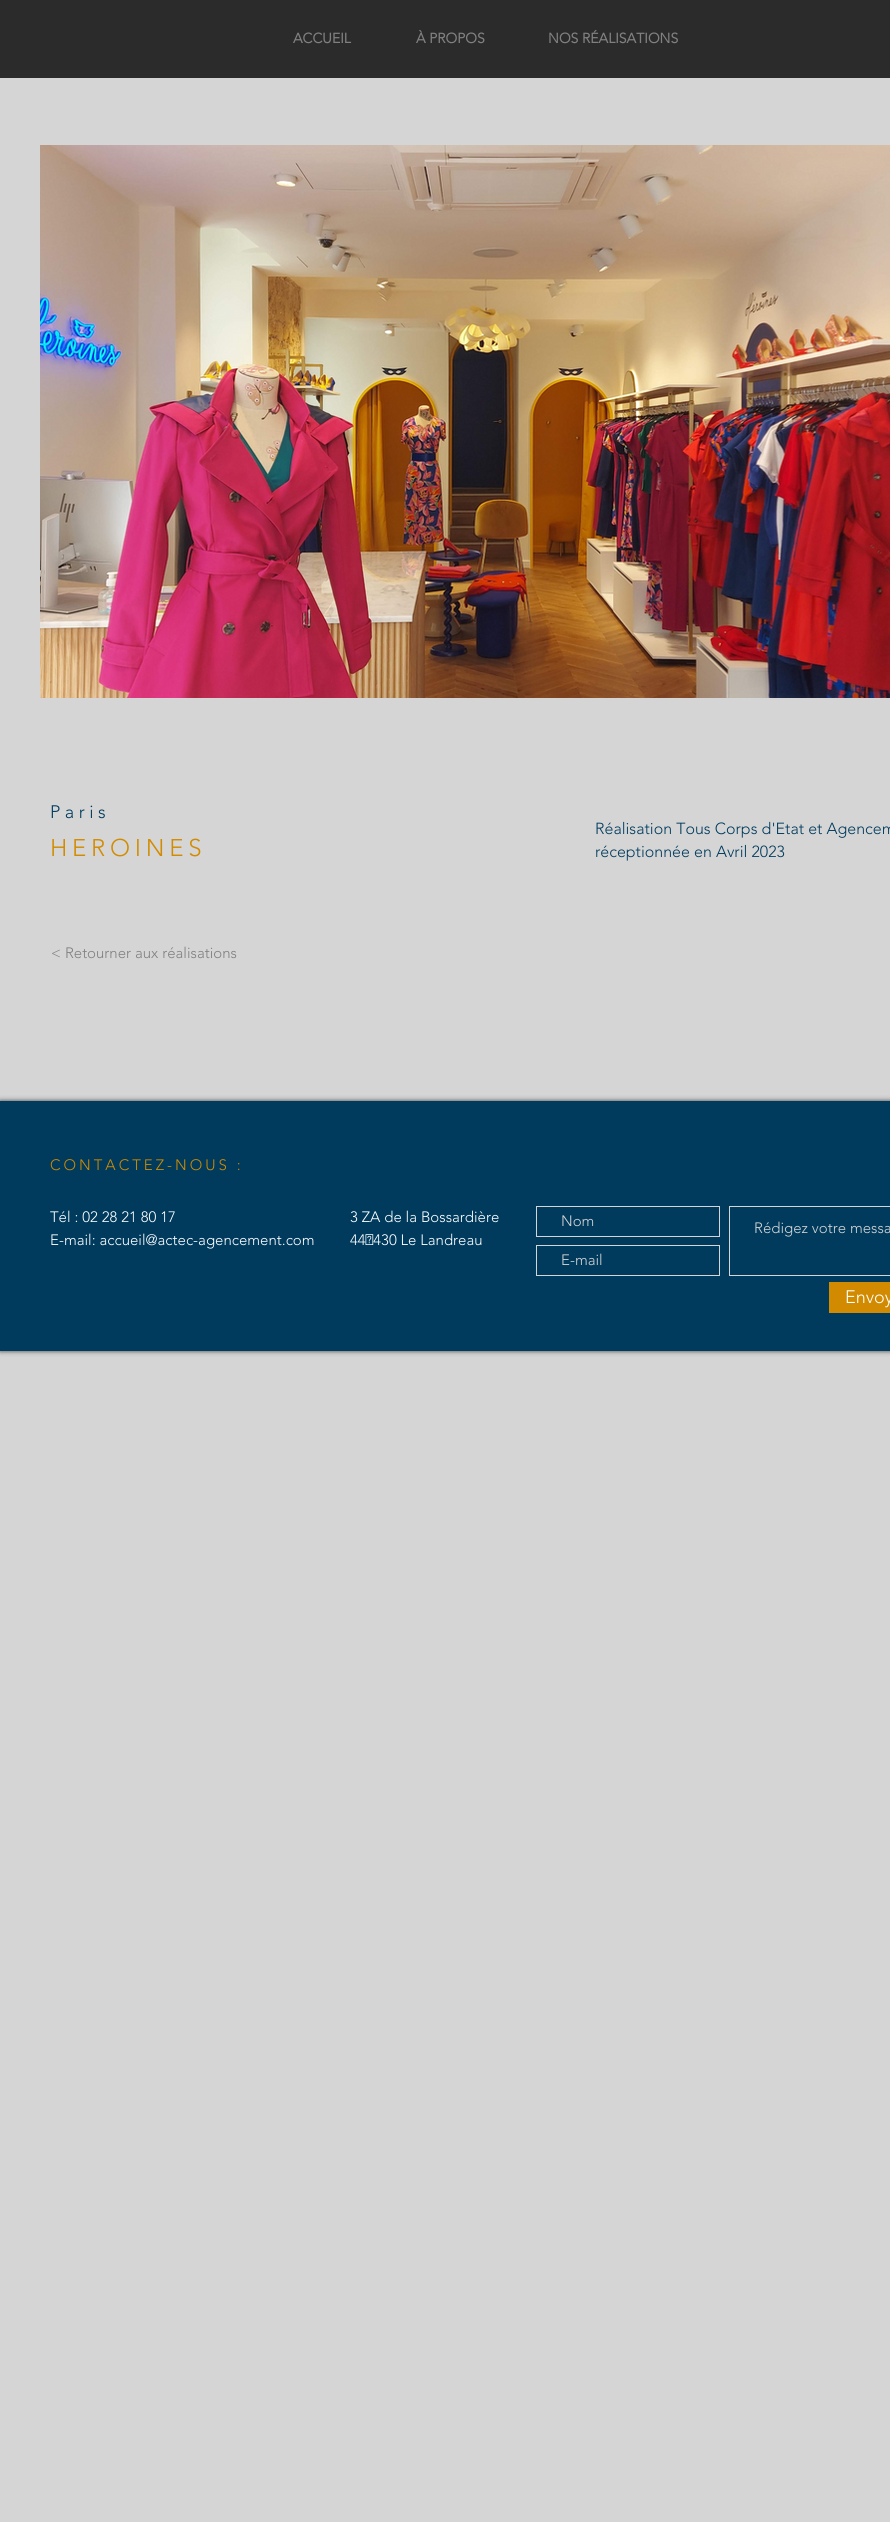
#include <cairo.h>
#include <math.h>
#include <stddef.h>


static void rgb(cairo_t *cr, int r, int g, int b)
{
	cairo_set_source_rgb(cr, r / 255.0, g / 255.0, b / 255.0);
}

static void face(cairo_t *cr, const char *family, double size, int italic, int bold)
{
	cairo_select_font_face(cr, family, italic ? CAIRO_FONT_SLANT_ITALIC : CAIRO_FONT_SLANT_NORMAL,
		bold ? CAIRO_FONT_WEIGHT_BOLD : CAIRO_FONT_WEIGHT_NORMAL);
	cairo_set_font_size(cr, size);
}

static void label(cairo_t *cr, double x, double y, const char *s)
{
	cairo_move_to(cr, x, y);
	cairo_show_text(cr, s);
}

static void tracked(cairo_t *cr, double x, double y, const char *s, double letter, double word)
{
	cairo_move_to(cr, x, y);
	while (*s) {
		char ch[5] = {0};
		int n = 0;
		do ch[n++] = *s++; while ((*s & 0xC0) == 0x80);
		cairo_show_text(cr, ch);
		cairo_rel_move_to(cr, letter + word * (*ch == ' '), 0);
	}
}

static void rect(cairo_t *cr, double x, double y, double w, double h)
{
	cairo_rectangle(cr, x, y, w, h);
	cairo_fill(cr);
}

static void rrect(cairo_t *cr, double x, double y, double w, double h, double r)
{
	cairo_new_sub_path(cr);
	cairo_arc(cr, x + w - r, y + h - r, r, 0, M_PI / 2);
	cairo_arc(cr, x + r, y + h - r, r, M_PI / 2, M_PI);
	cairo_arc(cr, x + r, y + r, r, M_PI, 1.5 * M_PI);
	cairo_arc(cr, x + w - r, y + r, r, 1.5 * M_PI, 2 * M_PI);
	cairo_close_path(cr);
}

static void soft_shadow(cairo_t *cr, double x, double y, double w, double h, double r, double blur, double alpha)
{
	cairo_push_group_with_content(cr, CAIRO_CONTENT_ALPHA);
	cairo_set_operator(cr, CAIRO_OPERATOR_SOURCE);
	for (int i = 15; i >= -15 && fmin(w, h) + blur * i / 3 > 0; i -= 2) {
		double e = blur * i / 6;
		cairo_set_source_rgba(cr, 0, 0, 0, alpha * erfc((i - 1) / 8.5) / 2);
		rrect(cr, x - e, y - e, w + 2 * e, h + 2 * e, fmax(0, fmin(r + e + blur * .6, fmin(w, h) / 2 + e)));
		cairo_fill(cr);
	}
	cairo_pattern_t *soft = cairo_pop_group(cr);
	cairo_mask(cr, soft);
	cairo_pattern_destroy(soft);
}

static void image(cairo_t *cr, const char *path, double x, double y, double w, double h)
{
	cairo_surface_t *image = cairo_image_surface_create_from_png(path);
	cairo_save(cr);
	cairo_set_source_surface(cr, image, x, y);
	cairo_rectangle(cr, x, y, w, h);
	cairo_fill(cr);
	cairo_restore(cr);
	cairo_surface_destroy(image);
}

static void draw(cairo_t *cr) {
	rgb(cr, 213, 213, 213);
	cairo_paint(cr);
	rgb(cr, 43, 43, 43);
	rect(cr, 0, 0, 890, 78);
	face(cr, "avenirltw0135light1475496", 14, 0, 1);
	rgb(cr, 128, 128, 128);
	label(cr, 293, 43, "ACCUEIL");
	label(cr, 416, 43, "À PROPOS");
	label(cr, 548, 43, "NOS RÉALISATIONS");
	image(cr, "image0.png", 40, 145, 850, 553);
	face(cr, "avenirltw0135light1475496 Light", 18, 0, 0);
	rgb(cr, 0, 59, 94);
	tracked(cr, 50, 818, "Paris", 4.5, 0);
	face(cr, "avenirltw0135light1475496 Light", 24, 0, 0);
	rgb(cr, 210, 139, 0);
	tracked(cr, 50, 856, "HEROINES", 4.75, 0);
	face(cr, "avenirltw0135light1475496 Light", 16, 0, 0);
	rgb(cr, 0, 59, 94);
	label(cr, 595, 834, "Réalisation Tous Corps d'Etat et Agencem");
	label(cr, 595, 857, "réceptionnée en Avril 2023");
	face(cr, "avenirltw0135light1475496 Light", 15, 0, 0);
	rgb(cr, 128, 128, 128);
	label(cr, 51, 958, "< Retourner aux réalisations");
	rgb(cr, 0, 0, 0);
	soft_shadow(cr, 0, 1101, 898, 250, 0, 2.5, 0.7);
	rgb(cr, 0, 59, 94);
	rect(cr, 0, 1101, 890, 250);
	rgb(cr, 210, 139, 0);
	tracked(cr, 50, 1170, "CONTACTEZ-NOUS :", 3, 0);
	rgb(cr, 255, 255, 255);
	label(cr, 50, 1222, "Tél : 02 28 21 80 17");
	label(cr, 50, 1245, "E-mail: accueil@actec-agencement.com");
	label(cr, 350, 1222, "3 ZA de la Bossardière");
	label(cr, 350, 1245, "44 430 Le Landreau");
	cairo_rectangle(cr, 536.5, 1206.5, 183, 30);
	rgb(cr, 213, 213, 213);
	cairo_set_line_width(cr, 1);
	cairo_stroke(cr);
	label(cr, 561, 1226, "Nom");
	cairo_rectangle(cr, 729.5, 1206.5, 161, 69);
	cairo_stroke(cr);
	label(cr, 754, 1233, "Rédigez votre messa");
	cairo_rectangle(cr, 536.5, 1245.5, 183, 30);
	cairo_stroke(cr);
	label(cr, 561, 1265, "E-mail");
	rgb(cr, 210, 139, 0);
	rect(cr, 829, 1282, 61, 31);
	face(cr, "avenirltw0135light1475496 Light", 18, 0, 0);
	rgb(cr, 255, 255, 255);
	label(cr, 845, 1303, "Envoy");
}

int main(void) {
	cairo_surface_t *surface = cairo_image_surface_create(CAIRO_FORMAT_RGB24, 890, 2522);
	cairo_t *cr = cairo_create(surface);
	cairo_font_options_t *options = cairo_font_options_create();
	cairo_font_options_set_hint_metrics(options, CAIRO_HINT_METRICS_OFF);
	cairo_font_options_set_hint_style(options, CAIRO_HINT_STYLE_NONE);
	cairo_set_font_options(cr, options);
	cairo_set_miter_limit(cr, 4);
	draw(cr);
	cairo_surface_write_to_png(surface, "render.png");
	cairo_font_options_destroy(options);
	cairo_destroy(cr);
	cairo_surface_destroy(surface);
	return 0;
}
